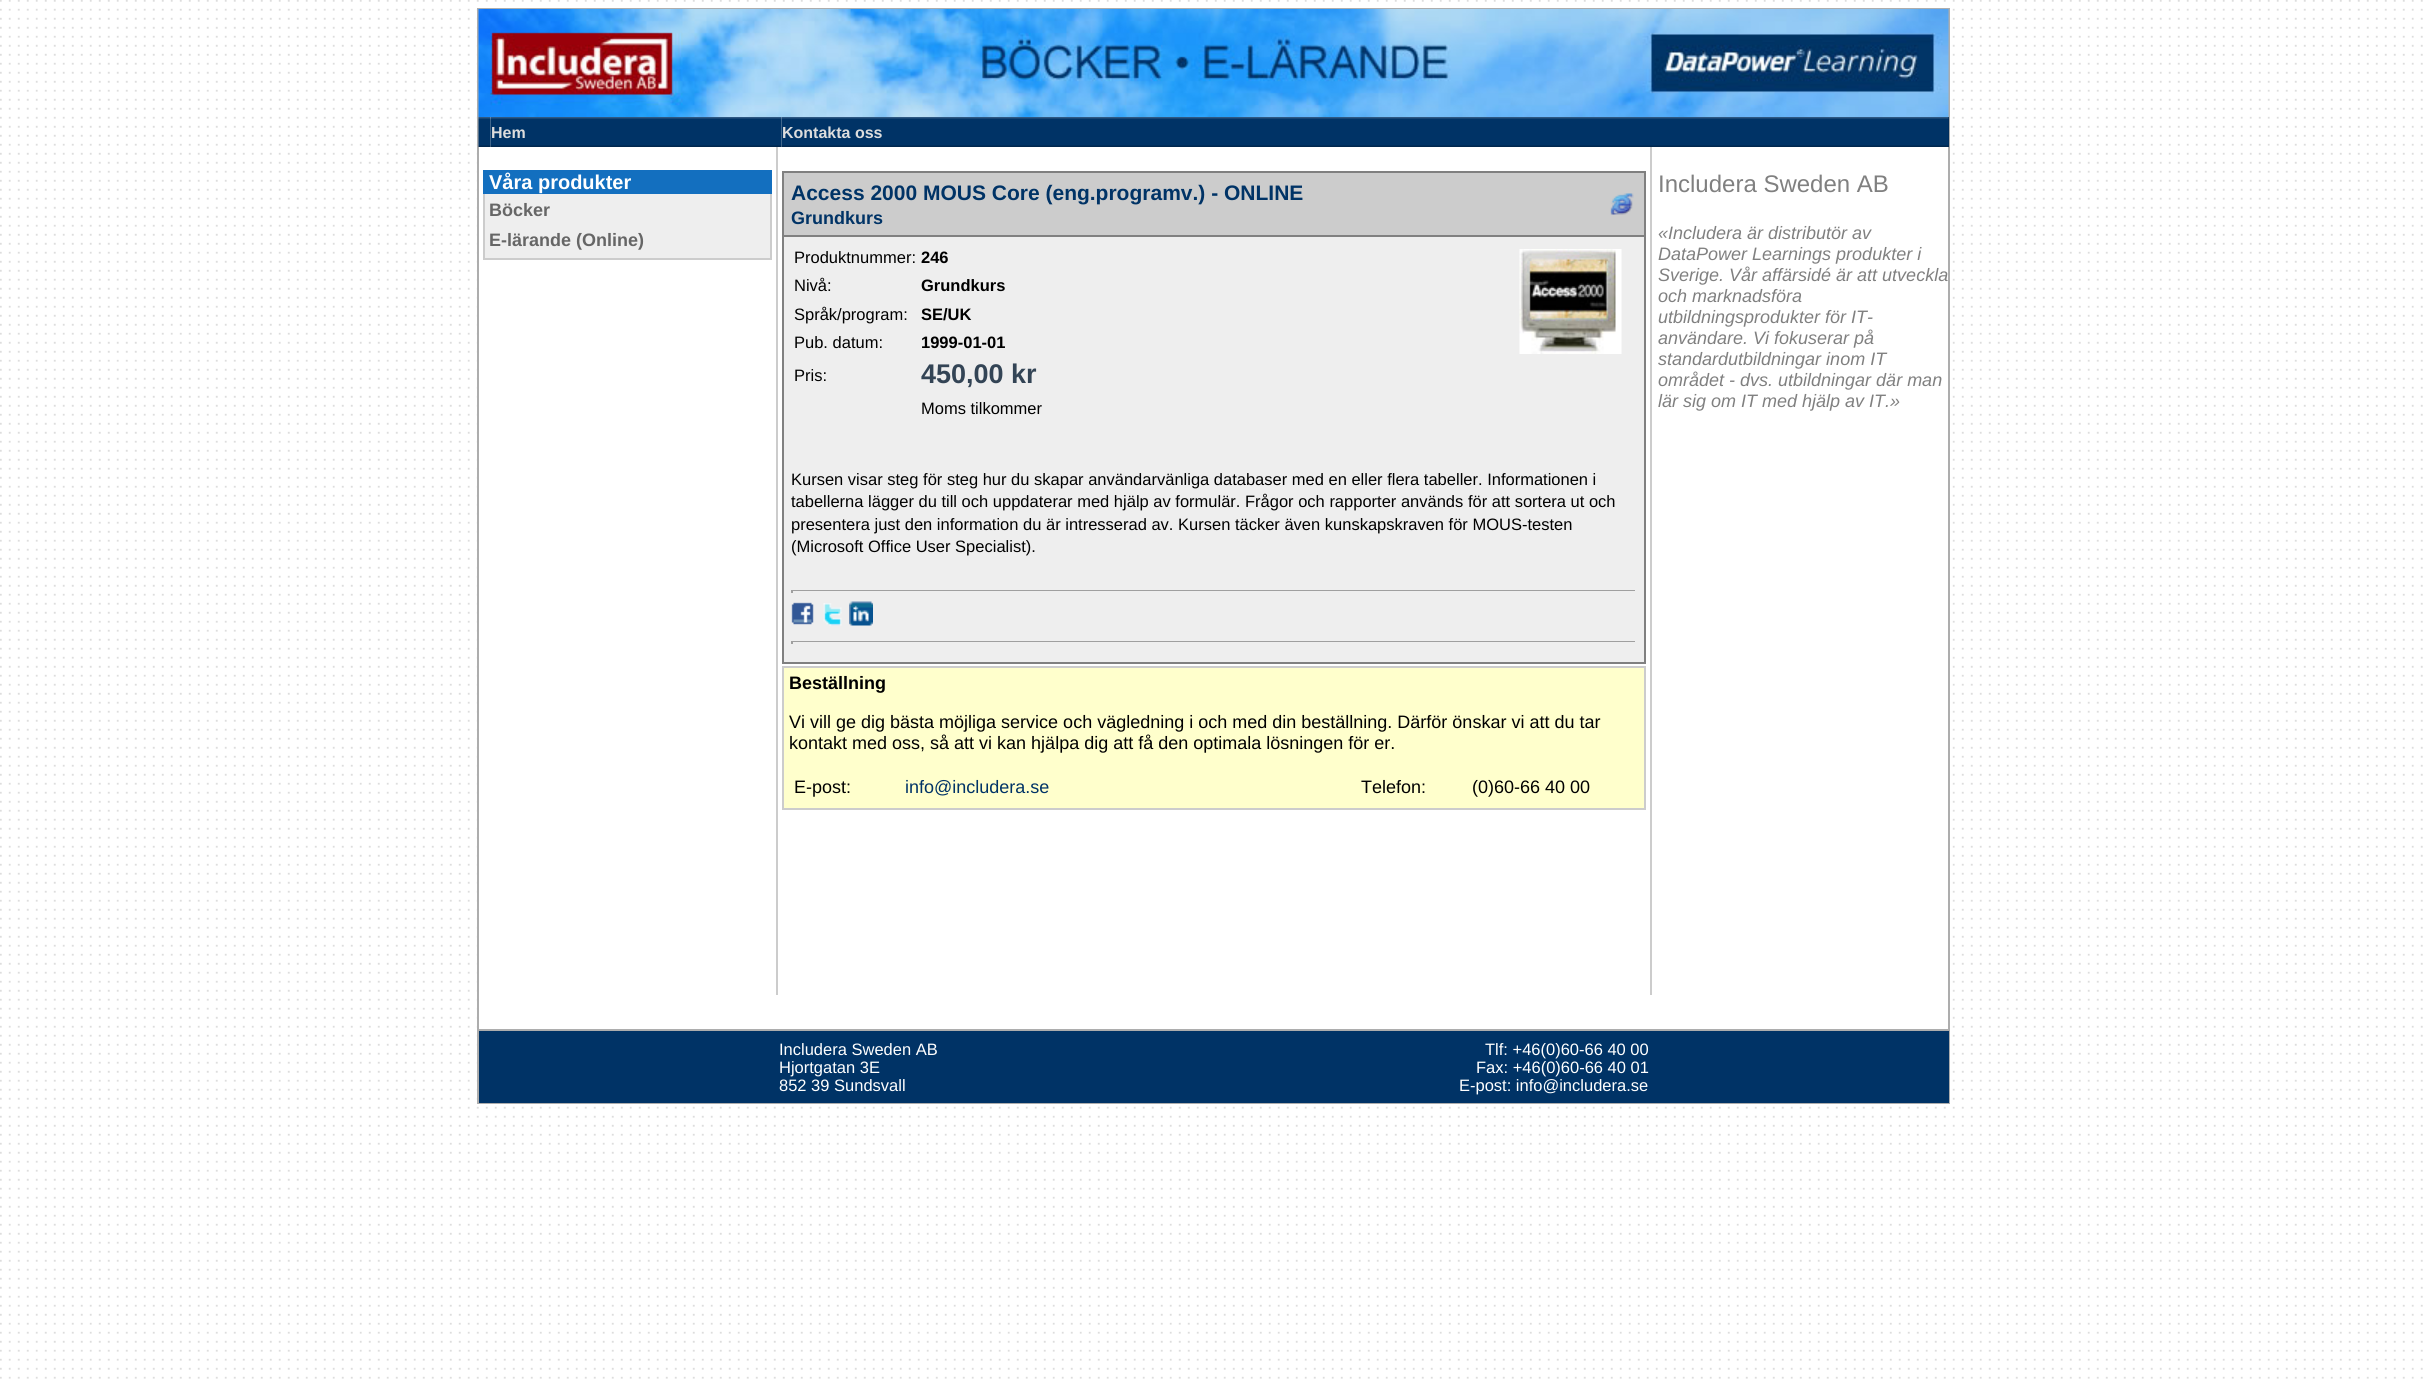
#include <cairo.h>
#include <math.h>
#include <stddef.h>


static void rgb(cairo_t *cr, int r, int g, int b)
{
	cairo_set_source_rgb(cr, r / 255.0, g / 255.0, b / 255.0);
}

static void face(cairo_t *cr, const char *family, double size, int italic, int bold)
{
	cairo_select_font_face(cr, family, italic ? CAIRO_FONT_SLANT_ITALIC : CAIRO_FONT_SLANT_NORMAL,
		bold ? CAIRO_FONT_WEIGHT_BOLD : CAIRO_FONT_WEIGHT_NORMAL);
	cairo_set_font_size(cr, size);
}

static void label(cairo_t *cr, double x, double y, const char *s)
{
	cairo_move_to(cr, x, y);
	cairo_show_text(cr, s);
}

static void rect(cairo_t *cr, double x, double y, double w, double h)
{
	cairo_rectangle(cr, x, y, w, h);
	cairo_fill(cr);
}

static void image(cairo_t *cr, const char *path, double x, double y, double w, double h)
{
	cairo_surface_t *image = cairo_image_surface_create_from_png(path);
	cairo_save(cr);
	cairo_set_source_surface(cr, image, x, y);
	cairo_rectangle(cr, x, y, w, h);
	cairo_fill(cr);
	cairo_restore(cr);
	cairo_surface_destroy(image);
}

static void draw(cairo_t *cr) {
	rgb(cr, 255, 255, 255);
	cairo_paint(cr);
	image(cr, "image0.png", 0, 0, 2423, 1379);
	rgb(cr, 255, 255, 255);
	rect(cr, 485, 117, 1461, 911);
	cairo_rectangle(cr, 478, 9, 1471, 1094);
	rgb(cr, 173, 173, 173);
	cairo_stroke(cr);
	rect(cr, 479, 1029, 1470, 2);
	image(cr, "image1.png", 478, 9, 1471, 108);
	image(cr, "image2.png", 478, 117, 13, 30);
	image(cr, "image3.png", 490, 117, 292, 30);
	face(cr, "Liberation Sans", 16, 0, 1);
	rgb(cr, 221, 221, 221);
	label(cr, 491, 138, "Hem");
	rgb(cr, 0, 41, 83);
	rect(cr, 1948, 117, 1, 30);
	image(cr, "image4.png", 781, 117, 1168, 30);
	rgb(cr, 221, 221, 221);
	label(cr, 782, 138, "Kontakta oss");
	rgb(cr, 204, 204, 204);
	rect(cr, 776, 147, 2, 848);
	rgb(cr, 19, 111, 191);
	rect(cr, 483, 170, 289, 24);
	face(cr, "Liberation Sans", 20, 0, 1);
	rgb(cr, 255, 255, 255);
	label(cr, 489, 189, "Våra produkter");
	rgb(cr, 238, 238, 238);
	rect(cr, 485, 194, 285, 64);
	rgb(cr, 204, 204, 204);
	rect(cr, 770, 194, 2, 66);
	rect(cr, 483, 258, 288, 2);
	rect(cr, 483, 194, 2, 66);
	face(cr, "Liberation Sans", 18, 0, 1);
	rgb(cr, 102, 102, 102);
	label(cr, 489, 216, "Böcker");
	label(cr, 489, 246, "E-lärande (Online)");
	rgb(cr, 204, 204, 204);
	cairo_rectangle(cr, 783, 172, 862, 64);
	cairo_fill_preserve(cr);
	rgb(cr, 128, 128, 128);
	cairo_stroke(cr);
	face(cr, "Liberation Sans", 21, 0, 1);
	rgb(cr, 0, 51, 102);
	label(cr, 791, 200, "Access 2000 MOUS Core (eng.programv.) - ONLINE");
	face(cr, "Liberation Sans", 18, 0, 1);
	label(cr, 791, 224, "Grundkurs");
	image(cr, "image5.png", 1610, 193, 24, 22);
	rgb(cr, 238, 238, 238);
	rect(cr, 784, 237, 860, 425);
	rgb(cr, 128, 128, 128);
	rect(cr, 1644, 237, 2, 426);
	rect(cr, 782, 662, 864, 2);
	rect(cr, 782, 237, 2, 426);
	face(cr, "Liberation Sans", 16.5, 0, 0);
	rgb(cr, 0, 0, 0);
	label(cr, 794, 263, "Produktnummer:");
	face(cr, "Liberation Sans", 16.5, 0, 1);
	label(cr, 921, 263, "246");
	face(cr, "Liberation Sans", 16.5, 0, 0);
	label(cr, 794, 291, "Nivå:");
	face(cr, "Liberation Sans", 16.5, 0, 1);
	label(cr, 921, 291, "Grundkurs");
	face(cr, "Liberation Sans", 16.5, 0, 0);
	label(cr, 794, 320, "Språk/program:");
	face(cr, "Liberation Sans", 16.5, 0, 1);
	label(cr, 921, 320, "SE/UK");
	face(cr, "Liberation Sans", 16.5, 0, 0);
	label(cr, 794, 348, "Pub. datum:");
	face(cr, "Liberation Sans", 16.5, 0, 1);
	label(cr, 921, 348, "1999-01-01");
	face(cr, "Liberation Sans", 16.5, 0, 0);
	label(cr, 794, 381, "Pris:");
	face(cr, "Liberation Sans", 27, 0, 1);
	rgb(cr, 51, 68, 85);
	label(cr, 921, 383, "450,00 kr");
	face(cr, "Liberation Sans", 16.5, 0, 0);
	rgb(cr, 0, 0, 0);
	label(cr, 921, 414, "Moms tilkommer");
	image(cr, "image6.png", 1519, 249, 103, 105);
	label(cr, 791, 485, "Kursen visar steg för steg hur du skapar användarvänliga databaser med en eller flera tabeller. Informationen i");
	label(cr, 791, 507, "tabellerna lägger du till och uppdaterar med hjälp av formulär. Frågor och rapporter används för att sortera ut och");
	label(cr, 791, 530, "presentera just den information du är intresserad av. Kursen täcker även kunskapskraven för MOUS-testen");
	label(cr, 791, 552, "(Microsoft Office User Specialist).");
	rgb(cr, 159, 159, 159);
	rect(cr, 791, 590, 846, 1);
	rgb(cr, 238, 238, 238);
	rect(cr, 1635, 590, 2, 3);
	rgb(cr, 159, 159, 159);
	rect(cr, 791, 590, 2, 3);
	image(cr, "image7.png", 791, 602, 23, 23);
	image(cr, "image8.png", 823, 603, 19, 23);
	image(cr, "image9.png", 849, 601, 24, 25);
	rect(cr, 791, 641, 846, 1);
	rgb(cr, 238, 238, 238);
	rect(cr, 1635, 641, 2, 3);
	rgb(cr, 159, 159, 159);
	rect(cr, 791, 641, 2, 3);
	rgb(cr, 255, 255, 204);
	cairo_rectangle(cr, 783, 667, 862, 142);
	cairo_fill_preserve(cr);
	rgb(cr, 204, 204, 204);
	cairo_stroke(cr);
	face(cr, "Liberation Sans", 18, 0, 1);
	rgb(cr, 0, 0, 0);
	label(cr, 789, 689, "Beställning");
	face(cr, "Liberation Sans", 18, 0, 0);
	label(cr, 789, 728, "Vi vill ge dig bästa möjliga service och vägledning i och med din beställning. Därför önskar vi att du tar");
	label(cr, 789, 749, "kontakt med oss, så att vi kan hjälpa dig att få den optimala lösningen för er.");
	label(cr, 794, 793, "E-post:");
	rgb(cr, 0, 51, 102);
	label(cr, 905, 793, "info@includera.se");
	rgb(cr, 0, 0, 0);
	label(cr, 1361, 793, "Telefon:");
	label(cr, 1472, 793, "(0)60-66 40 00");
	rgb(cr, 204, 204, 204);
	rect(cr, 1650, 147, 2, 848);
	face(cr, "Liberation Sans", 24, 0, 0);
	rgb(cr, 128, 128, 128);
	label(cr, 1658, 192, "Includera Sweden AB");
	face(cr, "Liberation Sans", 18, 1, 0);
	label(cr, 1658, 239, "«Includera är distributör av");
	label(cr, 1658, 260, "DataPower Learnings produkter i");
	label(cr, 1658, 281, "Sverige. Vår affärsidé är att utveckla");
	label(cr, 1658, 302, "och marknadsföra");
	label(cr, 1658, 323, "utbildningsprodukter för IT-");
	label(cr, 1658, 344, "användare. Vi fokuserar på");
	label(cr, 1658, 365, "standardutbildningar inom IT");
	label(cr, 1658, 386, "området - dvs. utbildningar där man");
	label(cr, 1658, 407, "lär sig om IT med hjälp av IT.»");
	rgb(cr, 0, 51, 102);
	rect(cr, 479, 1031, 1470, 72);
	face(cr, "Liberation Sans", 16.5, 0, 0);
	rgb(cr, 255, 255, 255);
	label(cr, 779, 1055, "Includera Sweden AB");
	label(cr, 779, 1073, "Hjortgatan 3E");
	label(cr, 779, 1091, "852 39 Sundsvall");
	label(cr, 1485, 1055, "Tlf: +46(0)60-66 40 00");
	label(cr, 1476, 1073, "Fax: +46(0)60-66 40 01");
	label(cr, 1459, 1091, "E-post: info@includera.se");
}

int main(void) {
	cairo_surface_t *surface = cairo_image_surface_create(CAIRO_FORMAT_RGB24, 2427, 1383);
	cairo_t *cr = cairo_create(surface);
	cairo_font_options_t *options = cairo_font_options_create();
	cairo_font_options_set_hint_metrics(options, CAIRO_HINT_METRICS_OFF);
	cairo_font_options_set_hint_style(options, CAIRO_HINT_STYLE_NONE);
	cairo_set_font_options(cr, options);
	cairo_set_miter_limit(cr, 4);
	draw(cr);
	cairo_surface_write_to_png(surface, "render.png");
	cairo_font_options_destroy(options);
	cairo_destroy(cr);
	cairo_surface_destroy(surface);
	return 0;
}
